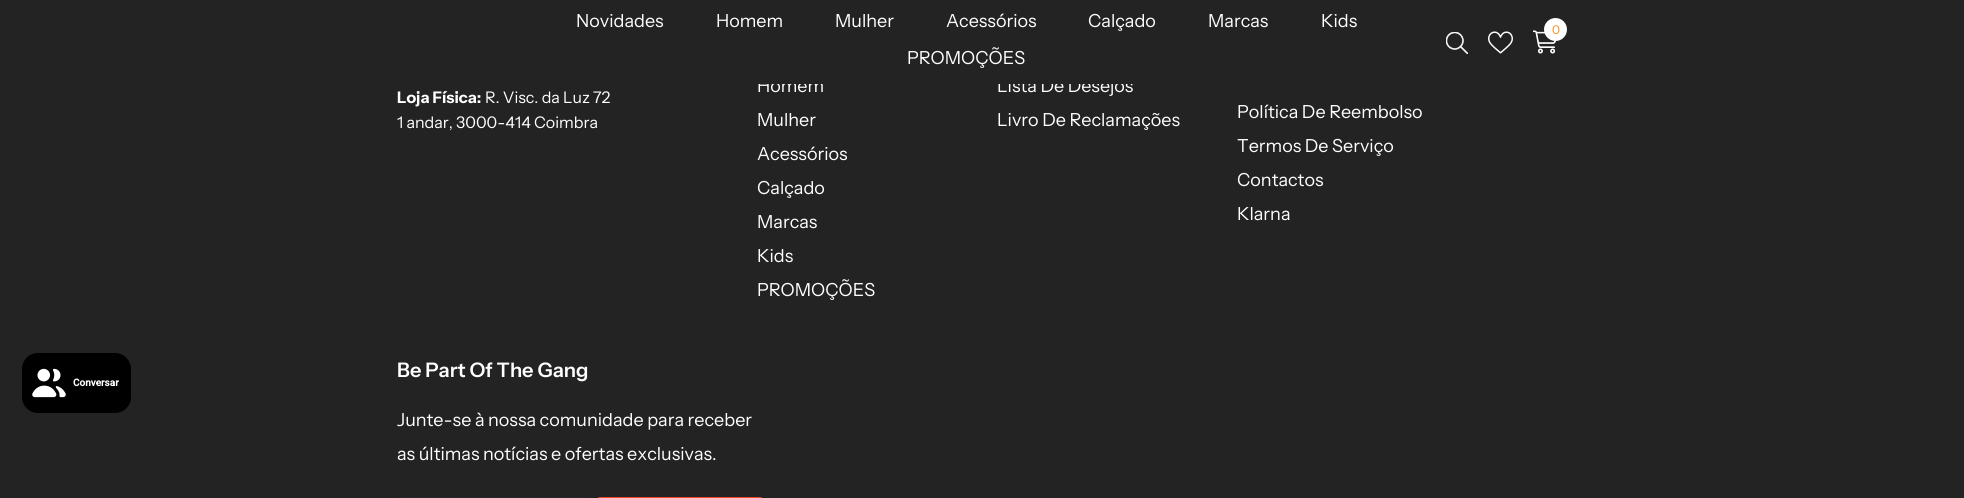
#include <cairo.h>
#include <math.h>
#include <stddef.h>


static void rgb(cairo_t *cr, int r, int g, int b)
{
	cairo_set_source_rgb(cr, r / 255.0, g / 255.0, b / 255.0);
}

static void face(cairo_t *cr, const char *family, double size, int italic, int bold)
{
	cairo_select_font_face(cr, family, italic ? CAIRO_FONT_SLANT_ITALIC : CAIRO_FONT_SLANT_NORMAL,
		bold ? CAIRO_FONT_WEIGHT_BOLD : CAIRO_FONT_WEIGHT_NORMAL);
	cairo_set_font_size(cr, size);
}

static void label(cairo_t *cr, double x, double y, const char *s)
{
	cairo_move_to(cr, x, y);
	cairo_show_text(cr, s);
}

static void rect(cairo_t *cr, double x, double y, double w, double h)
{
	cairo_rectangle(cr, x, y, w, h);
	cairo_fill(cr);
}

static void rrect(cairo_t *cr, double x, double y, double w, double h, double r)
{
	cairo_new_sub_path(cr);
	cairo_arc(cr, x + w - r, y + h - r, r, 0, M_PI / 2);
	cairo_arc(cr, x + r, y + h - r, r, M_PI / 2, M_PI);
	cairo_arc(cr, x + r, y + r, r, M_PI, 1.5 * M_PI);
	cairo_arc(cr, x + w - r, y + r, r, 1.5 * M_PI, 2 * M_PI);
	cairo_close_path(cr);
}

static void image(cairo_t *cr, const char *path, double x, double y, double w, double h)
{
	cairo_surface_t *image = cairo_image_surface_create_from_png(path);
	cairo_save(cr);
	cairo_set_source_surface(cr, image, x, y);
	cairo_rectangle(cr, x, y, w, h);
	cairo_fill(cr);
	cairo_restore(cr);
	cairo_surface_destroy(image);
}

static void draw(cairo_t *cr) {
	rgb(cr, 35, 35, 35);
	cairo_paint(cr);
	rgb(cr, 0, 0, 0);
	rrect(cr, 22, 353, 109, 60, 16);
	cairo_fill(cr);
	image(cr, "image0.png", 32, 368, 34, 30);
	face(cr, "Roboto", 10, 0, 1);
	rgb(cr, 255, 255, 255);
	label(cr, 73, 386, "Conversar");
	face(cr, "Instrument Sans", 18, 0, 0);
	label(cr, 757, 92, "Homem");
	label(cr, 997, 92, "Lista De Desejos");
	rgb(cr, 35, 35, 35);
	rect(cr, 758, 79, 375, 5);
	rgb(cr, 255, 255, 255);
	label(cr, 576, 27, "Novidades");
	label(cr, 716, 27, "Homem");
	label(cr, 835, 27, "Mulher");
	label(cr, 946, 27, "Acessórios");
	label(cr, 1088, 27, "Calçado");
	label(cr, 1208, 27, "Marcas");
	label(cr, 1321, 27, "Kids");
	label(cr, 907, 64, "PROMOÇÕES");
	image(cr, "image1.png", 1533, 30, 24, 24);
	cairo_arc(cr, 1555.5, 29.5, 11.5, 0, 2 * M_PI);
	cairo_fill(cr);
	face(cr, "Instrument Sans", 12, 0, 0);
	rgb(cr, 255, 139, 33);
	label(cr, 1552, 34, "0");
	image(cr, "image2.png", 1446, 32, 22, 22);
	image(cr, "image3.png", 1488, 31, 25, 23);
	face(cr, "Instrument Sans", 16, 0, 1);
	rgb(cr, 255, 255, 255);
	label(cr, 397, 103, "Loja Física:");
	face(cr, "Instrument Sans", 16, 0, 0);
	label(cr, 485, 103, "R. Visc. da Luz 72");
	label(cr, 397, 128, "1 andar, 3000-414 Coimbra");
	face(cr, "Instrument Sans", 18, 0, 0);
	label(cr, 757, 126, "Mulher");
	label(cr, 757, 160, "Acessórios");
	label(cr, 757, 194, "Calçado");
	label(cr, 757, 228, "Marcas");
	label(cr, 757, 262, "Kids");
	label(cr, 757, 296, "PROMOÇÕES");
	label(cr, 997, 126, "Livro De Reclamações");
	label(cr, 1237, 118, "Política De Reembolso");
	label(cr, 1237, 152, "Termos De Serviço");
	label(cr, 1237, 186, "Contactos");
	label(cr, 1237, 220, "Klarna");
	face(cr, "Instrument Sans SemiBold", 20, 0, 0);
	label(cr, 397, 377, "Be Part Of The Gang");
	face(cr, "Instrument Sans", 18, 0, 0);
	label(cr, 397, 426, "Junte-se à nossa comunidade para receber");
	label(cr, 397, 460, "as últimas notícias e ofertas exclusivas.");
	rrect(cr, 397.5, 497.5, 194, 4, 2.5);
	rgb(cr, 38, 38, 43);
	cairo_set_line_width(cr, 1);
	cairo_stroke(cr);
	rrect(cr, 597.5, 497.5, 165, 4, 2.5);
	rgb(cr, 236, 75, 42);
	cairo_stroke(cr);
}

int main(void) {
	cairo_surface_t *surface = cairo_image_surface_create(CAIRO_FORMAT_RGB24, 1964, 498);
	cairo_t *cr = cairo_create(surface);
	cairo_font_options_t *options = cairo_font_options_create();
	cairo_font_options_set_hint_metrics(options, CAIRO_HINT_METRICS_OFF);
	cairo_font_options_set_hint_style(options, CAIRO_HINT_STYLE_NONE);
	cairo_set_font_options(cr, options);
	cairo_set_miter_limit(cr, 4);
	draw(cr);
	cairo_surface_write_to_png(surface, "render.png");
	cairo_font_options_destroy(options);
	cairo_destroy(cr);
	cairo_surface_destroy(surface);
	return 0;
}
